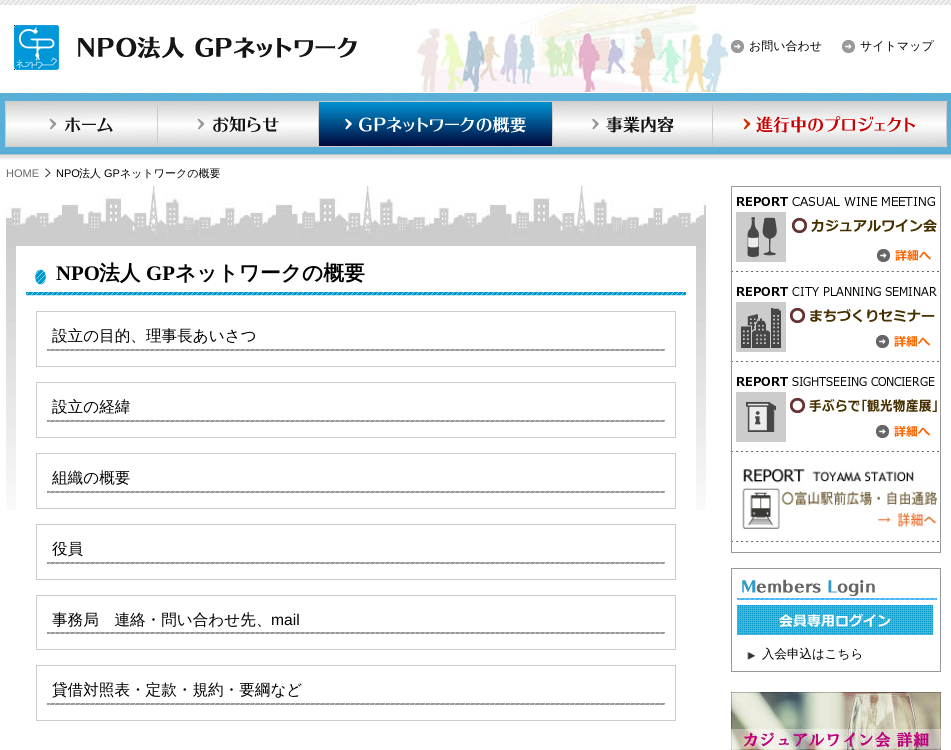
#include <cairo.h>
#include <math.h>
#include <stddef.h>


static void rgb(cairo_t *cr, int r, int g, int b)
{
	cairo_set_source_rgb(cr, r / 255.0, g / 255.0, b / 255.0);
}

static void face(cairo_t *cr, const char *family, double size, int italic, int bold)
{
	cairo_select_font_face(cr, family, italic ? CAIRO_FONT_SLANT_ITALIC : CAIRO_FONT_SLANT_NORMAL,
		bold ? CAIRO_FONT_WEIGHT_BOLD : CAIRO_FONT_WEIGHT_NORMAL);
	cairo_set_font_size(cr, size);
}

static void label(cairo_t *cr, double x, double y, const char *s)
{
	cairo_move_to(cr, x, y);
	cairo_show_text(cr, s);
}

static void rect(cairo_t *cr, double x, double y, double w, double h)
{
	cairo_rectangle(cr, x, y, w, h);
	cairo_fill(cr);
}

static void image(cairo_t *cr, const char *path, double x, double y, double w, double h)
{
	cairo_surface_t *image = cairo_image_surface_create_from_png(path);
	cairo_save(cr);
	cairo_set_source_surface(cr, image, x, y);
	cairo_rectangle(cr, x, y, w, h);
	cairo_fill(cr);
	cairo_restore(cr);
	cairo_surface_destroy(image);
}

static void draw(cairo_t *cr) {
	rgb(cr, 255, 255, 255);
	cairo_paint(cr);
	image(cr, "image0.png", 0, 0, 951, 160);
	image(cr, "image1.png", 416, 4, 336, 88);
	image(cr, "image2.png", 14, 25, 343, 45);
	image(cr, "image3.png", 731, 40, 13, 13);
	face(cr, "WenQuanYi Zen Hei Medium", 12, 0, 0);
	rgb(cr, 0, 0, 0);
	label(cr, 749, 50, "お問い合わせ");
	image(cr, "image3.png", 842, 40, 13, 13);
	label(cr, 860, 50, "サイトマップ");
	image(cr, "image4.png", 5, 101, 153, 46);
	image(cr, "image5.png", 158, 101, 160, 46);
	image(cr, "image6.png", 318, 101, 234, 46);
	image(cr, "image7.png", 552, 101, 160, 46);
	image(cr, "image8.png", 712, 101, 235, 46);
	face(cr, "Liberation Sans", 11, 0, 0);
	rgb(cr, 102, 102, 102);
	label(cr, 6, 177, "HOME");
	image(cr, "image9.png", 45, 168, 6, 10);
	rgb(cr, 0, 0, 0);
	label(cr, 56, 177, "NPO");
	face(cr, "WenQuanYi Zen Hei Medium", 11, 0, 0);
	label(cr, 79, 177, "法人");
	face(cr, "Liberation Sans", 11, 0, 0);
	label(cr, 104, 177, "GP");
	face(cr, "WenQuanYi Zen Hei Medium", 11, 0, 0);
	label(cr, 120, 177, "ネットワークの概要");
	image(cr, "image10.png", 6, 186, 700, 324);
	rgb(cr, 255, 255, 255);
	rect(cr, 16, 246, 680, 264);
	image(cr, "image11.png", 26, 269, 660, 27);
	face(cr, "Liberation Serif", 20.75, 0, 1);
	rgb(cr, 0, 0, 0);
	label(cr, 56, 280, "NPO");
	face(cr, "WenQuanYi Zen Hei", 20.75, 0, 1);
	label(cr, 99, 280, "法人");
	face(cr, "Liberation Serif", 20.75, 0, 1);
	label(cr, 146, 280, "GP");
	face(cr, "WenQuanYi Zen Hei", 20.75, 0, 1);
	label(cr, 175, 280, "ネットワークの概要");
	cairo_rectangle(cr, 36.5, 311.5, 639, 55);
	rgb(cr, 204, 204, 204);
	cairo_set_line_width(cr, 1);
	cairo_stroke(cr);
	image(cr, "image12.png", 47, 349, 618, 2);
	face(cr, "WenQuanYi Zen Hei Medium", 15.6, 0, 0);
	rgb(cr, 0, 0, 0);
	label(cr, 52, 341, "設立の目的、理事長あいさつ");
	cairo_rectangle(cr, 36.5, 382.5, 639, 55);
	rgb(cr, 204, 204, 204);
	cairo_stroke(cr);
	image(cr, "image12.png", 47, 420, 618, 2);
	rgb(cr, 0, 0, 0);
	label(cr, 52, 412, "設立の経緯");
	cairo_rectangle(cr, 36.5, 453.5, 639, 55);
	rgb(cr, 204, 204, 204);
	cairo_stroke(cr);
	image(cr, "image12.png", 47, 491, 618, 2);
	rgb(cr, 0, 0, 0);
	label(cr, 52, 483, "組織の概要");
	cairo_rectangle(cr, 36.5, 524.5, 639, 55);
	rgb(cr, 204, 204, 204);
	cairo_stroke(cr);
	image(cr, "image12.png", 47, 562, 618, 2);
	rgb(cr, 0, 0, 0);
	label(cr, 52, 554, "役員");
	cairo_rectangle(cr, 36.5, 595.5, 639, 54);
	rgb(cr, 204, 204, 204);
	cairo_stroke(cr);
	image(cr, "image12.png", 47, 632, 618, 2);
	rgb(cr, 0, 0, 0);
	label(cr, 52, 625, "事務局　連絡・問い合わせ先、");
	face(cr, "Liberation Sans", 15.6, 0, 0);
	label(cr, 271, 625, "mail");
	cairo_rectangle(cr, 36.5, 665.5, 639, 55);
	rgb(cr, 204, 204, 204);
	cairo_stroke(cr);
	image(cr, "image12.png", 47, 703, 618, 2);
	face(cr, "WenQuanYi Zen Hei Medium", 15.6, 0, 0);
	rgb(cr, 0, 0, 0);
	label(cr, 52, 695, "貸借対照表・定款・規約・要綱など");
	cairo_rectangle(cr, 731.5, 186.5, 209, 366);
	rgb(cr, 153, 153, 153);
	cairo_stroke(cr);
	image(cr, "image13.png", 732, 271, 207, 1);
	image(cr, "image14.png", 736, 197, 201, 65);
	image(cr, "image13.png", 732, 361, 207, 1);
	image(cr, "image15.png", 736, 287, 201, 65);
	image(cr, "image13.png", 732, 451, 207, 1);
	image(cr, "image16.png", 736, 377, 201, 65);
	image(cr, "image13.png", 732, 541, 207, 1);
	image(cr, "image17.png", 742, 469, 196, 60);
	cairo_rectangle(cr, 731.5, 568.5, 209, 103);
	cairo_stroke(cr);
	image(cr, "image18.png", 737, 579, 200, 21);
	image(cr, "image19.png", 737, 605, 196, 30);
	image(cr, "image20.png", 747, 652, 9, 8);
	face(cr, "WenQuanYi Zen Hei Medium", 12.5, 0, 0);
	rgb(cr, 0, 0, 0);
	label(cr, 762, 658, "入会申込はこちら");
	image(cr, "image21.png", 731, 692, 210, 58);
}

int main(void) {
	cairo_surface_t *surface = cairo_image_surface_create(CAIRO_FORMAT_RGB24, 951, 750);
	cairo_t *cr = cairo_create(surface);
	cairo_font_options_t *options = cairo_font_options_create();
	cairo_font_options_set_hint_metrics(options, CAIRO_HINT_METRICS_OFF);
	cairo_font_options_set_hint_style(options, CAIRO_HINT_STYLE_NONE);
	cairo_set_font_options(cr, options);
	cairo_set_miter_limit(cr, 4);
	draw(cr);
	cairo_surface_write_to_png(surface, "render.png");
	cairo_font_options_destroy(options);
	cairo_destroy(cr);
	cairo_surface_destroy(surface);
	return 0;
}
